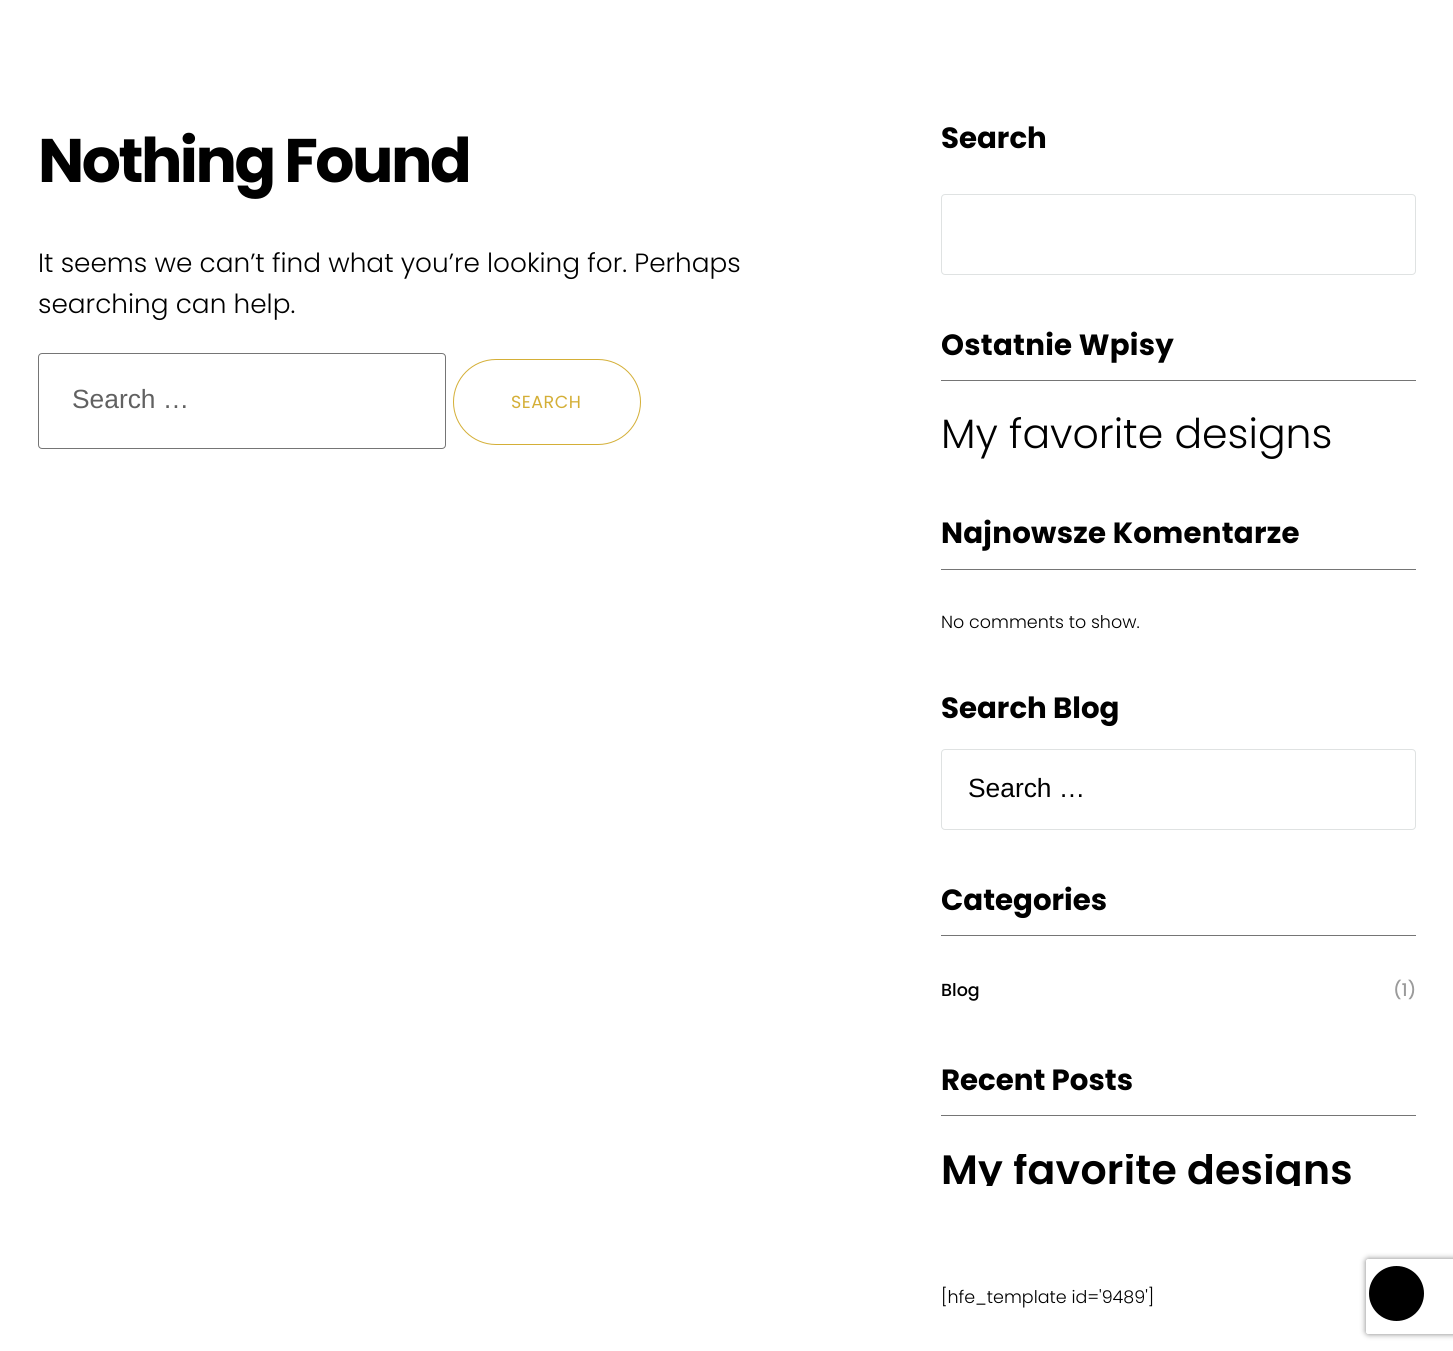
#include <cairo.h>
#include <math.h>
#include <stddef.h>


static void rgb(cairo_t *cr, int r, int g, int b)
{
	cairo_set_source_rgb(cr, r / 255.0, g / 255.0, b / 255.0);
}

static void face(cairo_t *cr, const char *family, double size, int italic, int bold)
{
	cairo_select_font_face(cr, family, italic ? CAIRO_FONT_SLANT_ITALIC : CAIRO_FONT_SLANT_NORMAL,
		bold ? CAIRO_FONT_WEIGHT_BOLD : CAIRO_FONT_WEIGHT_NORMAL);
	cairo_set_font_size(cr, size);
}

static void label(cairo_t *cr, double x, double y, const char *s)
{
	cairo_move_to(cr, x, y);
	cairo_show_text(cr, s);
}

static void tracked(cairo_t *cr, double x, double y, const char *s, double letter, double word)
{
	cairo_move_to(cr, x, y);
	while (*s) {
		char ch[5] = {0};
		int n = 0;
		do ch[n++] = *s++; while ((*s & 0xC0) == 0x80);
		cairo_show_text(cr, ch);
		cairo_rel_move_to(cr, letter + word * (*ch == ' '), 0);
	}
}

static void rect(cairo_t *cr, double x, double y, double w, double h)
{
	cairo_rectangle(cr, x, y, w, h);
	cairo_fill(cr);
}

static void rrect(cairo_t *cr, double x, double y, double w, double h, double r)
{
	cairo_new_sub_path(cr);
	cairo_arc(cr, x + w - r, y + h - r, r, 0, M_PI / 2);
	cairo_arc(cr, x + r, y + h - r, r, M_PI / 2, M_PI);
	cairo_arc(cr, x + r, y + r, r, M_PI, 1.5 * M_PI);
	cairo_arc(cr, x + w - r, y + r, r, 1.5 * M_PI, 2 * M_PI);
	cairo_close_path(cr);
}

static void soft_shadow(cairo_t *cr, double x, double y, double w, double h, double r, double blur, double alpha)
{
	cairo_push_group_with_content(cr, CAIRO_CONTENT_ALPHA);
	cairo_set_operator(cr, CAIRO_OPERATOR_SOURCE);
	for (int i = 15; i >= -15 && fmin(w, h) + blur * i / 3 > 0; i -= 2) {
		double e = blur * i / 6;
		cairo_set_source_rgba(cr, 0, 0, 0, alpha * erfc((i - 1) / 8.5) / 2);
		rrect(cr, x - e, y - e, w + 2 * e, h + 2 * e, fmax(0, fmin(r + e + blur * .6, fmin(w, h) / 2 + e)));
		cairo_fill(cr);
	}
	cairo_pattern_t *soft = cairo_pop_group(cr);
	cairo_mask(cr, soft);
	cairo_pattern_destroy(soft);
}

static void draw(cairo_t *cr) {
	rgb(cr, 255, 255, 255);
	cairo_paint(cr);
	face(cr, "Poppins", 61.5, 0, 1);
	rgb(cr, 0, 0, 0);
	tracked(cr, 38, 182, "Nothing Found", -2.5, 0);
	face(cr, "Poppins Light", 26.35, 0, 0);
	label(cr, 38, 272, "It seems we can’t find what you’re looking for. Perhaps");
	label(cr, 38, 313, "searching can help.");
	rrect(cr, 38.5, 353.5, 407, 95, 3.5);
	rgb(cr, 117, 117, 117);
	cairo_set_line_width(cr, 1);
	cairo_stroke(cr);
	face(cr, "Liberation Sans", 26.35, 0, 0);
	rgb(cr, 97, 97, 97);
	label(cr, 72, 408, "Search …");
	rrect(cr, 453.5, 359.5, 187, 85, 42.5);
	rgb(cr, 212, 175, 55);
	cairo_stroke(cr);
	face(cr, "Poppins", 17.5, 0, 0);
	tracked(cr, 511, 408, "SEARCH", 0.5, 0);
	face(cr, "Poppins", 29.25, 0, 1);
	rgb(cr, 0, 0, 0);
	label(cr, 941, 148, "Search");
	rrect(cr, 941.5, 194.5, 474, 80, 3.5);
	rgb(cr, 223, 226, 226);
	cairo_stroke(cr);
	rgb(cr, 117, 117, 117);
	rect(cr, 941, 380, 475, 1);
	rgb(cr, 0, 0, 0);
	tracked(cr, 941, 355, "Ostatnie Wpisy", 0.25, 0);
	face(cr, "Poppins Light", 41, 0, 0);
	label(cr, 941, 448, "My favorite designs");
	rgb(cr, 117, 117, 117);
	rect(cr, 941, 569, 475, 1);
	face(cr, "Poppins", 29.25, 0, 1);
	rgb(cr, 0, 0, 0);
	tracked(cr, 941, 543, "Najnowsze Komentarze", 0.25, 0);
	face(cr, "Poppins Light", 17.5, 0, 0);
	label(cr, 941, 628, "No comments to show.");
	face(cr, "Poppins", 29.25, 0, 1);
	label(cr, 941, 718, "Search Blog");
	rrect(cr, 941.5, 749.5, 474, 80, 3.5);
	rgb(cr, 223, 226, 226);
	cairo_stroke(cr);
	face(cr, "Liberation Sans", 26.35, 0, 0);
	rgb(cr, 0, 0, 0);
	label(cr, 968, 797, "Search …");
	rgb(cr, 117, 117, 117);
	rect(cr, 941, 935, 475, 1);
	face(cr, "Poppins", 29.25, 0, 1);
	rgb(cr, 0, 0, 0);
	label(cr, 941, 910, "Categories");
	face(cr, "Poppins Medium", 17.5, 0, 0);
	label(cr, 941, 996, "Blog");
	rgb(cr, 155, 155, 155);
	label(cr, 1393, 996, "(1)");
	rgb(cr, 117, 117, 117);
	rect(cr, 941, 1115, 475, 1);
	face(cr, "Poppins", 29.25, 0, 1);
	rgb(cr, 0, 0, 0);
	label(cr, 941, 1090, "Recent Posts");
	cairo_save(cr);
	cairo_rectangle(cr, 941, 1154, 475, 32);
	cairo_clip(cr);
	face(cr, "Poppins SemiBold", 41, 0, 0);
	tracked(cr, 941, 1184, "My favorite designs", 0.25, 0);
	cairo_restore(cr);
	face(cr, "Poppins Light", 17.5, 0, 0);
	label(cr, 941, 1303, "[hfe_template id='9489']");
	cairo_save(cr);
	cairo_set_fill_rule(cr, CAIRO_FILL_RULE_EVEN_ODD);
	cairo_new_path(cr);
	cairo_move_to(cr, 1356, 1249);
	cairo_line_to(cr, 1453, 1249);
	cairo_line_to(cr, 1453, 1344);
	cairo_line_to(cr, 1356, 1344);
	cairo_close_path(cr);
	cairo_move_to(cr, 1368.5, 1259);
	cairo_line_to(cr, 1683.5, 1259);
	cairo_curve_to(cr, 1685, 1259, 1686, 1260, 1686, 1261.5);
	cairo_line_to(cr, 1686, 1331.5);
	cairo_curve_to(cr, 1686, 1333, 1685, 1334, 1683.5, 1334);
	cairo_line_to(cr, 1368.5, 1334);
	cairo_curve_to(cr, 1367, 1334, 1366, 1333, 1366, 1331.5);
	cairo_line_to(cr, 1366, 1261.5);
	cairo_curve_to(cr, 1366, 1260, 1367, 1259, 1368.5, 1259);
	cairo_close_path(cr);
	cairo_clip(cr);
	rgb(cr, 128, 128, 128);
	soft_shadow(cr, 1366, 1259, 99, 75, 2.5, 3, 1);
	cairo_restore(cr);
	cairo_arc(cr, 1396.5, 1293.5, 27.5, 0, 2 * M_PI);
	cairo_fill(cr);
}

int main(void) {
	cairo_surface_t *surface = cairo_image_surface_create(CAIRO_FORMAT_RGB24, 1453, 1351);
	cairo_t *cr = cairo_create(surface);
	cairo_font_options_t *options = cairo_font_options_create();
	cairo_font_options_set_hint_metrics(options, CAIRO_HINT_METRICS_OFF);
	cairo_font_options_set_hint_style(options, CAIRO_HINT_STYLE_NONE);
	cairo_set_font_options(cr, options);
	cairo_set_miter_limit(cr, 4);
	draw(cr);
	cairo_surface_write_to_png(surface, "render.png");
	cairo_font_options_destroy(options);
	cairo_destroy(cr);
	cairo_surface_destroy(surface);
	return 0;
}
